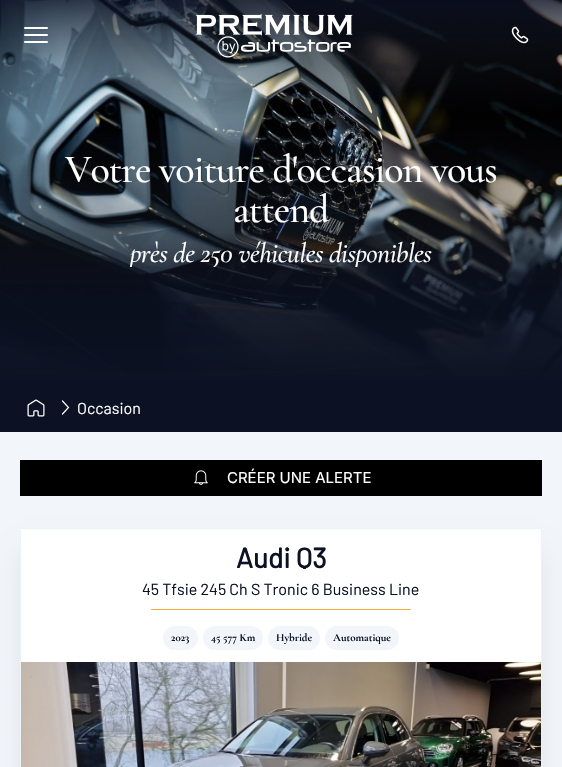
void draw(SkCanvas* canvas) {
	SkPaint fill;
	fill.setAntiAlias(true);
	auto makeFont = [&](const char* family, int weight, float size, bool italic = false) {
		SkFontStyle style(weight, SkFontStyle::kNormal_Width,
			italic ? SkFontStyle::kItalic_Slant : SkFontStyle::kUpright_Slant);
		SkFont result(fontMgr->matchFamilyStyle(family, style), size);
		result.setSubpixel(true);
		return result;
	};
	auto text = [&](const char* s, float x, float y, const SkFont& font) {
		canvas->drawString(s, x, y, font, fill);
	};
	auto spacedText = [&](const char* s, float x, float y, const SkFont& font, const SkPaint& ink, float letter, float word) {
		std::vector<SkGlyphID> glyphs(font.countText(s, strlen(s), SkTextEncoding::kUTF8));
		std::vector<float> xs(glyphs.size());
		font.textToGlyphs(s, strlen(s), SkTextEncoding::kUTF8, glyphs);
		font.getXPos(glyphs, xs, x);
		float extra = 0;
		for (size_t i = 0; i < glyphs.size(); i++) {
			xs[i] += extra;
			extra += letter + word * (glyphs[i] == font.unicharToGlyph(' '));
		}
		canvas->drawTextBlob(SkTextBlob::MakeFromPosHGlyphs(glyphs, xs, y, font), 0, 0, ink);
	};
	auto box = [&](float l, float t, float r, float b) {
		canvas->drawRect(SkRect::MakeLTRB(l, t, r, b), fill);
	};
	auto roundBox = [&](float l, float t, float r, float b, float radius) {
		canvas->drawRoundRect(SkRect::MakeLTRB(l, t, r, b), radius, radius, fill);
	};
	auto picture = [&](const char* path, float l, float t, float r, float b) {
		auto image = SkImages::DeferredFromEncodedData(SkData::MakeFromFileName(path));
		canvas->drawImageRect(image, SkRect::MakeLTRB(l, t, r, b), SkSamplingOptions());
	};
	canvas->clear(0xFFFFFFFF);
	picture("image2.png", 0, 0, 562, 384);
	fill.setStyle(SkPaint::kStroke_Style);
	fill.setStrokeWidth(2);
	fill.setStrokeCap(SkPaint::kRound_Cap);
	fill.setStrokeJoin(SkPaint::kRound_Join);
	fill.setColor(0xFFFFFFFF);
	canvas->drawPath(SkPathBuilder().moveTo(25, 28).lineTo(47, 28).moveTo(25, 35).lineTo(47, 35).moveTo(25, 42).lineTo(47, 42).detach(), fill);
	picture("image0.png", 196, 14, 353, 58);
	picture("image1.png", 511, 26, 529, 44);
	fill.setStyle(SkPaint::kFill_Style);
	fill.setColor(0xFF0C1223);
	box(0, 384, 562, 432);
	picture("image3.png", 27, 399, 45, 417);
	fill.setStyle(SkPaint::kStroke_Style);
	fill.setStrokeWidth(1.2f);
	fill.setStrokeJoin(SkPaint::kMiter_Join);
	fill.setColor(0xFFFFFFFF);
	canvas->drawPath(SkPathBuilder().moveTo(62.5f, 414).lineTo(68.5f, 407.5f).lineTo(62.5f, 401).detach(), fill);
	fill.setStyle(SkPaint::kFill_Style);
	fill.setColor(0xFFF2F5FA);
	box(0, 432, 562, 767);
	fill.setColor(0xFF000000);
	box(20, 460, 542, 496);
	picture("image4.png", 194, 470, 208, 485);
	fill.setColor(0x1A000000);
	fill.setMaskFilter(SkMaskFilter::MakeBlur(kNormal_SkBlurStyle, 12.5f));
	canvas->drawRect(SkRect::MakeLTRB(25, 553, 537, 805), fill);
	fill.setMaskFilter(nullptr);
	fill.setColor(0xFFFFFFFF);
	box(21, 529, 541, 662);
	fill.setStyle(SkPaint::kStroke_Style);
	fill.setStrokeWidth(1);
	fill.setStrokeCap(SkPaint::kButt_Cap);
	fill.setColor(0xFFEAF3F9);
	canvas->drawRect(SkRect::MakeLTRB(20.5f, 528.5f, 541.5f, 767.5f), fill);
	fill.setStyle(SkPaint::kFill_Style);
	fill.setColor(0xFFFAAA41);
	roundBox(151, 609, 411, 610, 0.5f);
	fill.setColor(0xFFF2F5FA);
	roundBox(163, 626, 198, 650, 12);
	roundBox(203, 626, 263, 650, 12);
	roundBox(268, 626, 320, 650, 12);
	roundBox(325, 626, 399, 650, 12);
	picture("image5.png", 21, 662, 541, 767);
	auto font1 = makeFont("Cormorant Garamond", 500, 40);
	fill.setColor(0xFFFFFFFF);
	spacedText("Votre voiture d'occasion vous", 65, 182, font1, fill, -1, 0);
	spacedText("attend", 233, 222, font1, fill, -1, 0);
	canvas->save();
	canvas->clipRect(SkRect::MakeLTRB(46, 239, 516, 267));
	auto font2 = makeFont("Cormorant Garamond", 500, 28, true);
	spacedText("près de 250 véhicules disponibles", 130, 262, font2, fill, -0.5f, 0);
	canvas->restore();
	auto font3 = makeFont("Barlow", 400, 16);
	text("Occasion", 77, 414, font3);
	auto font4 = makeFont("Inter", 400, 15);
	text("CRÉER UNE ALERTE", 227, 483, font4);
	canvas->save();
	canvas->clipRect(SkRect::MakeLTRB(29, 545, 533, 569));
	auto font5 = makeFont("Barlow", 700, 28);
	fill.setColor(0xFF0C1223);
	text("Audi Q3", 236, 568, font5);
	canvas->restore();
	text("45 Tfsie 245 Ch S Tronic 6 Business Line", 142, 595, font3);
	auto font6 = makeFont("Cormorant Garamond", 700, 11);
	text("2023", 171, 641, font6);
	text("45 577 Km", 211, 641, font6);
	text("Hybride", 276, 641, font6);
	text("Automatique", 333, 641, font6);
}
